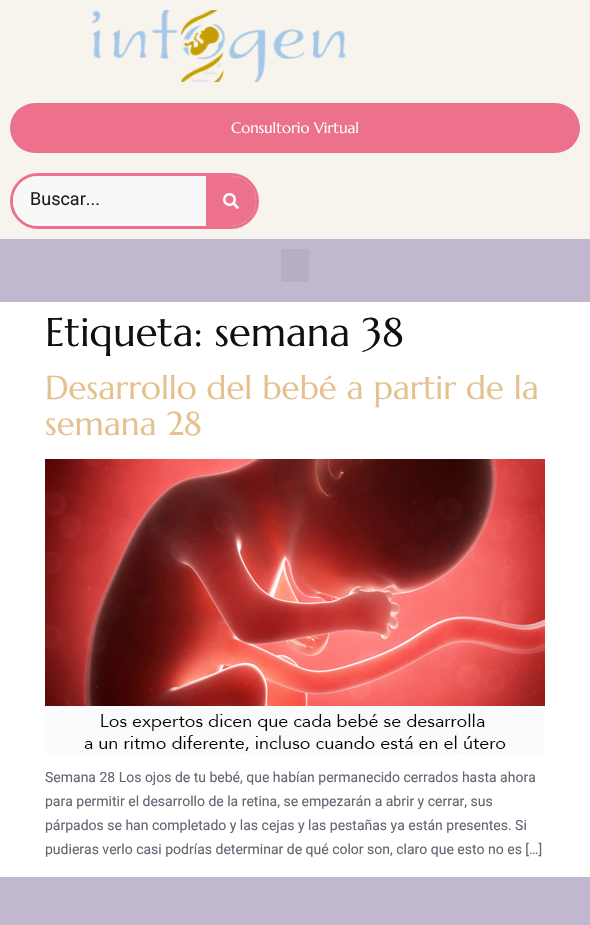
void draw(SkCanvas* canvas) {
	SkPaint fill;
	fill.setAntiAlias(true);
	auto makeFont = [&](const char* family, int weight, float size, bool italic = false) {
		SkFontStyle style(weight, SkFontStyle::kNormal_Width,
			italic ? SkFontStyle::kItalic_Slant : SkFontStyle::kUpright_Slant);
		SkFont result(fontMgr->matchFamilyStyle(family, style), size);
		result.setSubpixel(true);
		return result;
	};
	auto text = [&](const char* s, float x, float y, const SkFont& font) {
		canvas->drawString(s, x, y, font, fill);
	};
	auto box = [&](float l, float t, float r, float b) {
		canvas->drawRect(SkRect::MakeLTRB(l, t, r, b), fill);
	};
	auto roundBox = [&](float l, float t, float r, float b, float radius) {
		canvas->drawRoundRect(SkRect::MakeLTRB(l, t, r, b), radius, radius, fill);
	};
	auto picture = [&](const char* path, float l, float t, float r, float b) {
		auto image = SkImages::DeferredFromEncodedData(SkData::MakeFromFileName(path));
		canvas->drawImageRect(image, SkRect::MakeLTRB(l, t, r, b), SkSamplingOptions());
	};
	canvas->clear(0xFFFFFFFF);
	fill.setColor(0xFFF7F4ED);
	box(0, 0, 590, 239);
	picture("image0.png", 91, 10, 346, 82);
	fill.setColor(0xFFED708D);
	roundBox(10, 103, 580, 153, 25);
	fill.setStyle(SkPaint::kStroke_Style);
	fill.setStrokeWidth(3);
	canvas->drawRoundRect(SkRect::MakeLTRB(11.5f, 174.5f, 257.5f, 227.5f), 26.5f, 26.5f, fill);
	fill.setStyle(SkPaint::kFill_Style);
	fill.setColor(0xFFF8F8F8);
	canvas->drawPath(SkPathBuilder().moveTo(38, 176).lineTo(206, 176).lineTo(206, 226).lineTo(38, 226).cubicTo(24, 226, 13, 215, 13, 201).cubicTo(13, 187, 24, 176, 38, 176).close().detach(), fill);
	fill.setColor(0xFFED708D);
	canvas->drawPath(SkPathBuilder().moveTo(206, 176).lineTo(231, 176).cubicTo(245, 176, 256, 187, 256, 201).cubicTo(256, 215, 245, 226, 231, 226).lineTo(206, 226).close().detach(), fill);
	picture("image1.png", 223, 193, 239, 209);
	fill.setColor(0xFFC1B7CE);
	box(0, 239, 590, 302);
	fill.setColor(0xFFB7AEC4);
	roundBox(281, 249, 309, 282, 3);
	picture("image2.png", 45, 459, 545, 755);
	fill.setColor(0xFFC1B7CE);
	box(0, 877, 590, 925);
	auto font1 = makeFont("Marcellus", 400, 15);
	fill.setColor(0xFFFFFFFF);
	text("Consultorio Virtual", 231, 133, font1);
	auto font2 = makeFont("Roboto", 400, 18);
	fill.setColor(0xFF1E1E1E);
	text("Buscar...", 30, 205, font2);
	auto font3 = makeFont("Marcellus", 400, 40);
	fill.setColor(0xFF111111);
	text("Etiqueta: semana 38", 45, 346, font3);
	auto font4 = makeFont("Marcellus", 400, 33);
	fill.setColor(0xFFE5C18F);
	text("Desarrollo del bebé a partir de la", 45, 399, font4);
	text("semana 28", 45, 435, font4);
	auto font5 = makeFont("Roboto", 400, 14);
	fill.setColor(0xFF626672);
	text("Semana 28 Los ojos de tu bebé, que habían permanecido cerrados hasta ahora", 45, 782, font5);
	text("para permitir el desarrollo de la retina, se empezarán a abrir y cerrar, sus", 45, 806, font5);
	text("párpados se han completado y las cejas y las pestañas ya están presentes. Si", 45, 830, font5);
	text("pudieras verlo casi podrías determinar de qué color son, claro que esto no es […]", 45, 854, font5);
}
